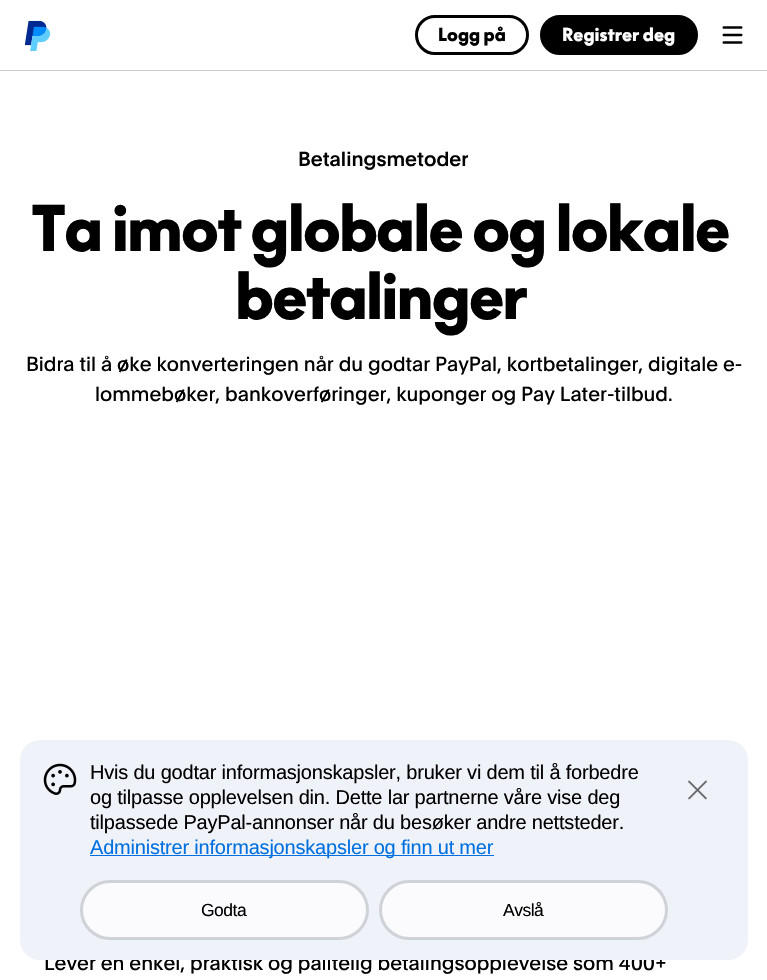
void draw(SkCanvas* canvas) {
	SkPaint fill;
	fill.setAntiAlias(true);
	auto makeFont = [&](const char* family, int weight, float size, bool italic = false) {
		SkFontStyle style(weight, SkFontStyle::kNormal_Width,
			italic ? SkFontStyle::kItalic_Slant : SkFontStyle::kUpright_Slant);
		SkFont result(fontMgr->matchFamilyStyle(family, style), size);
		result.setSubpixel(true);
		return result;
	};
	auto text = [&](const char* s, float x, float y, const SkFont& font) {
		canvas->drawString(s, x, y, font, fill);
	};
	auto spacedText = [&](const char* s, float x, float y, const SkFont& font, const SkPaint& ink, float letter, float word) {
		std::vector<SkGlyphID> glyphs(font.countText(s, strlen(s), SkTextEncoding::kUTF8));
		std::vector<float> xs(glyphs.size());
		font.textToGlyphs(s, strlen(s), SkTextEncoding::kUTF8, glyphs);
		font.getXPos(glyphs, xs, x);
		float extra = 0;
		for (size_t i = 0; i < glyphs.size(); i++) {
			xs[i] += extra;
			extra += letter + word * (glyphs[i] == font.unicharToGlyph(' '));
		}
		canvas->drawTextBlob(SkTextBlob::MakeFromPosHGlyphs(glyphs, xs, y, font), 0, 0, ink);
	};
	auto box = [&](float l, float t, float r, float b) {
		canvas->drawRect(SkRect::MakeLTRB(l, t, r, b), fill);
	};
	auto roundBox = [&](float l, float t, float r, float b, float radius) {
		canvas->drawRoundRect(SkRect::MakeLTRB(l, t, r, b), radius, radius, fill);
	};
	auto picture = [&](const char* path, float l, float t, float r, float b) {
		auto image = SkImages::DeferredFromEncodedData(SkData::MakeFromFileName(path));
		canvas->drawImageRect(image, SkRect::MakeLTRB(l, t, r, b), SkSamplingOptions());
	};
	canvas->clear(0xFFFFFFFF);
	picture("image0.png", 24, 20, 50, 51);
	fill.setStyle(SkPaint::kStroke_Style);
	fill.setStrokeWidth(3);
	fill.setColor(0xFF000000);
	canvas->drawRoundRect(SkRect::MakeLTRB(416.5f, 16.5f, 527.5f, 53.5f), 18.5f, 18.5f, fill);
	fill.setStyle(SkPaint::kFill_Style);
	canvas->drawRoundRect(SkRect::MakeLTRB(541.5f, 16.5f, 696.5f, 53.5f), 18.5f, 18.5f, fill);
	fill.setStyle(SkPaint::kStroke_Style);
	canvas->drawRoundRect(SkRect::MakeLTRB(541.5f, 16.5f, 696.5f, 53.5f), 18.5f, 18.5f, fill);
	picture("image1.png", 722, 26, 743, 44);
	fill.setStyle(SkPaint::kFill_Style);
	fill.setColor(0xFFCCCCCC);
	box(0, 70, 767, 71);
	auto font1 = makeFont("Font", 900, 17.5f);
	fill.setColor(0xFF000000);
	text("Logg på", 438, 41, font1);
	fill.setColor(0xFFFFFFFF);
	text("Registrer deg", 562, 41, font1);
	auto font2 = makeFont("Font", 500, 20);
	fill.setColor(0xFF000000);
	text("Betalingsmetoder", 298, 166, font2);
	auto font3 = makeFont("Font", 900, 61.25f);
	spacedText("Ta imot globale og lokale", 31, 251, font3, fill, -1.85f, 0);
	spacedText("betalinger", 235, 319, font3, fill, -1.85f, 0);
	auto font4 = makeFont("Font", 400, 20);
	text("Bidra til å øke konverteringen når du godtar PayPal, kortbetalinger, digitale e-", 26, 371, font4);
	text("lommebøker, bankoverføringer, kuponger og Pay Later-tilbud.", 95, 401, font4);
	text("Lever en enkel, praktisk og pålitelig betalingsopplevelse som 400+", 44, 970, font4);
	fill.setColor(0xFFF0F2F9);
	roundBox(20, 740, 748, 960, 20);
	picture("image2.png", 43, 763, 77, 795);
	auto font5 = makeFont("Liberation Sans", 400, 20);
	fill.setColor(0xFF000000);
	spacedText("Hvis du godtar informasjonskapsler, bruker vi dem til å forbedre", 90, 779, font5, fill, -0.2f, 0);
	spacedText("og tilpasse opplevelsen din. Dette lar partnerne våre vise deg", 90, 804, font5, fill, -0.2f, 0);
	spacedText("tilpassede PayPal-annonser når du besøker andre nettsteder.", 90, 829, font5, fill, -0.2f, 0);
	fill.setColor(0xFF0070E0);
	box(90, 855, 494, 856);
	spacedText("Administrer informasjonskapsler og finn ut mer", 90, 854, font5, fill, -0.2f, 0);
	fill.setColor(0xFFFBFBFD);
	canvas->drawRoundRect(SkRect::MakeLTRB(81.5f, 881.5f, 367.5f, 938.5f), 28.5f, 28.5f, fill);
	fill.setStyle(SkPaint::kStroke_Style);
	fill.setColor(0xFFCFD3D8);
	canvas->drawRoundRect(SkRect::MakeLTRB(81.5f, 881.5f, 367.5f, 938.5f), 28.5f, 28.5f, fill);
	auto font6 = makeFont("Liberation Sans", 400, 17.5f);
	fill.setStyle(SkPaint::kFill_Style);
	fill.setColor(0xFF000000);
	spacedText("Godta", 201, 916, font6, fill, -0.5f, 0);
	fill.setColor(0xFFFBFBFD);
	canvas->drawRoundRect(SkRect::MakeLTRB(380.5f, 881.5f, 666.5f, 938.5f), 28.5f, 28.5f, fill);
	fill.setStyle(SkPaint::kStroke_Style);
	fill.setColor(0xFFCFD3D8);
	canvas->drawRoundRect(SkRect::MakeLTRB(380.5f, 881.5f, 666.5f, 938.5f), 28.5f, 28.5f, fill);
	fill.setStyle(SkPaint::kFill_Style);
	fill.setColor(0xFF000000);
	spacedText("Avslå", 503, 916, font6, fill, -0.5f, 0);
	picture("image3.png", 688, 780, 707, 800);
}
